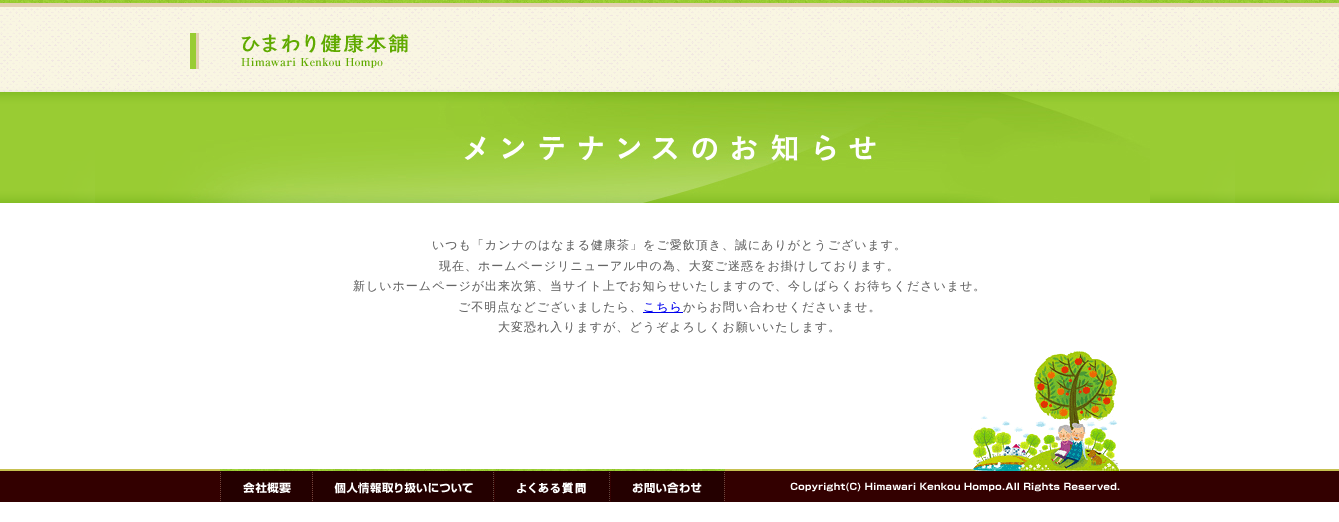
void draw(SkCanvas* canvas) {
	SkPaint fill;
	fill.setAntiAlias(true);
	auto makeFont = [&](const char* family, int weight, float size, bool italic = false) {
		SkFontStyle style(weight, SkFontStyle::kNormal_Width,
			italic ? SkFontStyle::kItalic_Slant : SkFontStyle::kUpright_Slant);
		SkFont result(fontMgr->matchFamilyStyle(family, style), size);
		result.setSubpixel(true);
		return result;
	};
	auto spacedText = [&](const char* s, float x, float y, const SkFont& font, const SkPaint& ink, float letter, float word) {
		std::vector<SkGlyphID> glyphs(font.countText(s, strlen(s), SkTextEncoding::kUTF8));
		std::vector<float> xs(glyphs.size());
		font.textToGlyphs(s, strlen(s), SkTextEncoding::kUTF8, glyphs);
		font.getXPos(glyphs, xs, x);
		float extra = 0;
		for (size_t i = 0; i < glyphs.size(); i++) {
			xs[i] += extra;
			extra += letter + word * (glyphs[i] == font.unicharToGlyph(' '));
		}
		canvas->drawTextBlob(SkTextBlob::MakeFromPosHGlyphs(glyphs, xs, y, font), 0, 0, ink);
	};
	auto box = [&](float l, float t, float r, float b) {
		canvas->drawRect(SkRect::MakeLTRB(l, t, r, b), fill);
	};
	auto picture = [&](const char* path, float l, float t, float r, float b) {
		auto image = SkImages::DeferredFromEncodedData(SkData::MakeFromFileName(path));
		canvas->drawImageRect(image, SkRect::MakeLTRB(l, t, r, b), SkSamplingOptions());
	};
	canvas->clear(0xFFFFFFFF);
	picture("image0.png", 0, 0, 1339, 92);
	picture("image1.png", 190, 0, 540, 92);
	picture("image2.png", 0, 92, 1339, 203);
	picture("image3.png", 190, 92, 1150, 203);
	fill.setColor(0xFF0000EE);
	box(643, 312, 683, 313);
	picture("image4.png", 971, 351, 1120, 469);
	picture("image5.png", 0, 469, 1339, 502);
	picture("image6.png", 220, 469, 312, 502);
	picture("image7.png", 312, 469, 493, 502);
	picture("image8.png", 493, 469, 609, 502);
	picture("image9.png", 609, 469, 725, 502);
	picture("image10.png", 790, 469, 1120, 492);
	auto font1 = makeFont("WenQuanYi Zen Hei", 500, 12);
	fill.setColor(0xFF666666);
	spacedText("いつも「カンナのはなまる健康茶」をご愛飲頂き、誠にありがとうございます。", 432, 249, font1, fill, 1, 0);
	spacedText("現在、ホームページリニューアル中の為、大変ご迷惑をお掛けしております。", 439, 270, font1, fill, 1, 0);
	spacedText("新しいホームページが出来次第、当サイト上でお知らせいたしますので、今しばらくお待ちくださいませ。", 353, 290, font1, fill, 1, 0);
	spacedText("ご不明点などございましたら、", 458, 311, font1, fill, 1, 0);
	fill.setColor(0xFF0000EE);
	spacedText("こちら", 643, 311, font1, fill, 1, 0);
	fill.setColor(0xFF666666);
	spacedText("からお問い合わせくださいませ。", 683, 311, font1, fill, 1, 0);
	spacedText("大変恐れ入りますが、どうぞよろしくお願いいたします。", 498, 331, font1, fill, 1, 0);
}
